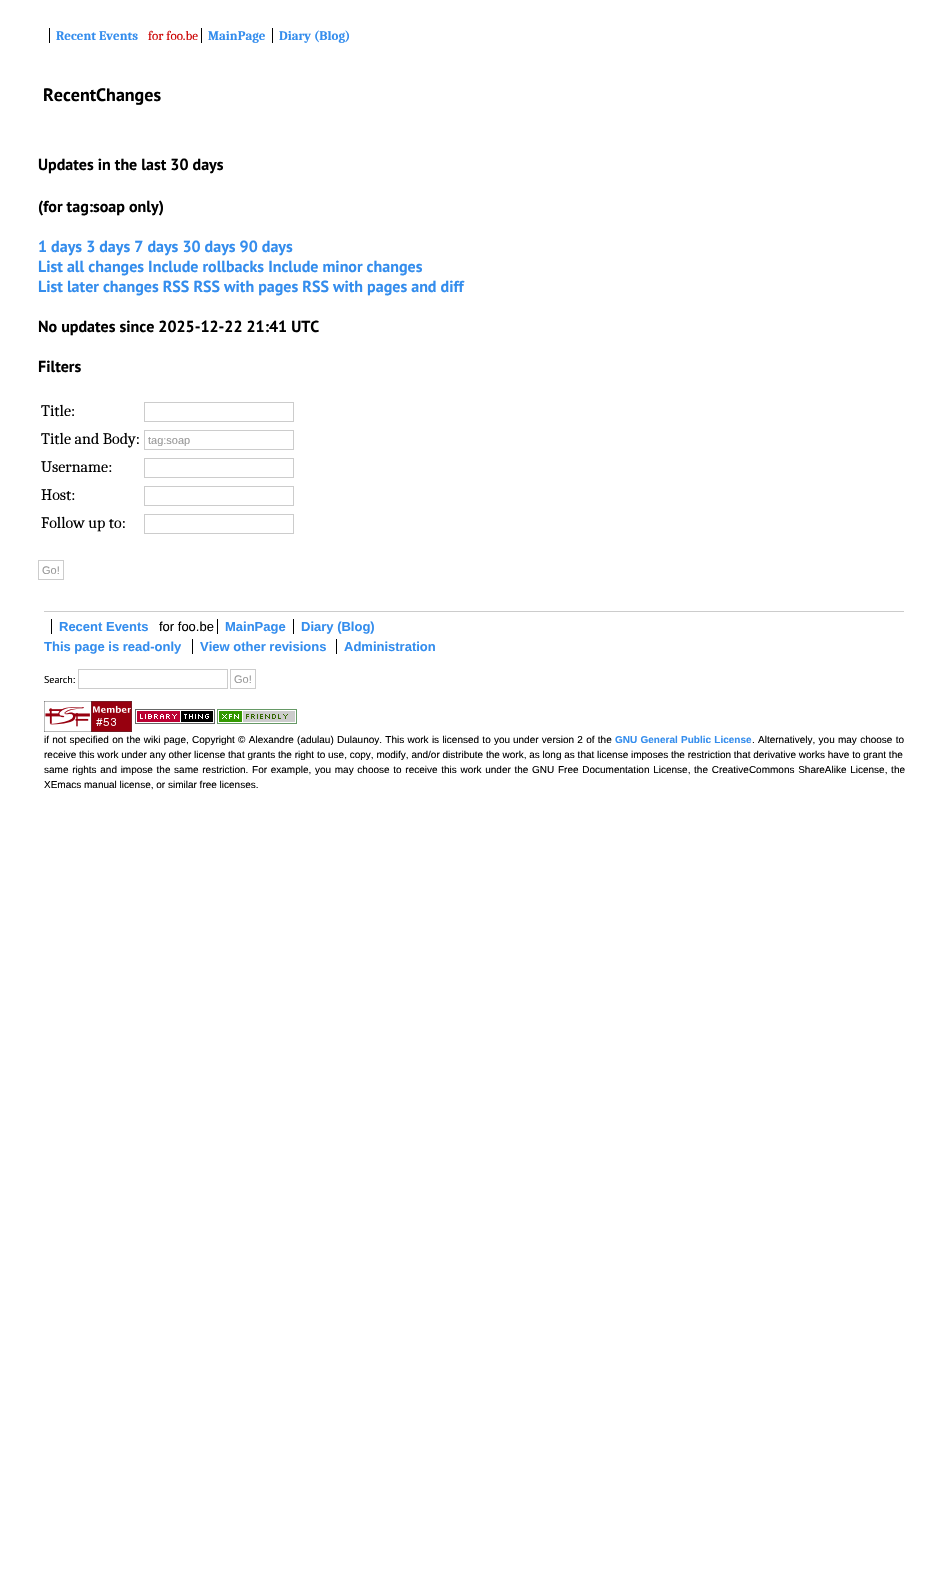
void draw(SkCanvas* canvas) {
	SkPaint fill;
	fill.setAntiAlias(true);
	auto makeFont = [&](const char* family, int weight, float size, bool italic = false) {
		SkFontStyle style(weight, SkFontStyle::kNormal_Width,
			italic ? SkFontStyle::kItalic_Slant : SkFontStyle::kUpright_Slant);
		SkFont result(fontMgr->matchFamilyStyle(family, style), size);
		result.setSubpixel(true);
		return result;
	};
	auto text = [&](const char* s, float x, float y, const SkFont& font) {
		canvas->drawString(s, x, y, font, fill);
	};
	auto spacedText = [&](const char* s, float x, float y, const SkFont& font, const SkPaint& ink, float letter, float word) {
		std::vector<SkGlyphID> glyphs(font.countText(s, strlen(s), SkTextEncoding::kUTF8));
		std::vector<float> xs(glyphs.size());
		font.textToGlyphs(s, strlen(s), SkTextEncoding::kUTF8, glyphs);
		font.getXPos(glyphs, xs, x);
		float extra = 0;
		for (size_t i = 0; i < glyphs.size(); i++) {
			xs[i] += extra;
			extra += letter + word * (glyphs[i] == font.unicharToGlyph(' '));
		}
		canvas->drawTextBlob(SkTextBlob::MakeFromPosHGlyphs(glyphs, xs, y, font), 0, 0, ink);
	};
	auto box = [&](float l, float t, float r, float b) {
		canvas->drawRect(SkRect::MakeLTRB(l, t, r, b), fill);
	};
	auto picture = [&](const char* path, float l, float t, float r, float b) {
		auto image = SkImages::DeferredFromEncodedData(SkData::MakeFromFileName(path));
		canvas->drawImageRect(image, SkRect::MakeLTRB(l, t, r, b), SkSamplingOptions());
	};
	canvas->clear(0xFFFFFFFF);
	fill.setColor(0xFF000000);
	box(49, 28, 50, 43);
	box(201, 28, 202, 43);
	box(272, 28, 273, 43);
	fill.setStyle(SkPaint::kStroke_Style);
	fill.setStrokeWidth(1);
	fill.setColor(0xFFCCCCCC);
	canvas->drawRect(SkRect::MakeLTRB(144.5f, 402.5f, 293.5f, 421.5f), fill);
	canvas->drawRect(SkRect::MakeLTRB(144.5f, 430.5f, 293.5f, 449.5f), fill);
	canvas->drawRect(SkRect::MakeLTRB(144.5f, 458.5f, 293.5f, 477.5f), fill);
	canvas->drawRect(SkRect::MakeLTRB(144.5f, 486.5f, 293.5f, 505.5f), fill);
	canvas->drawRect(SkRect::MakeLTRB(144.5f, 514.5f, 293.5f, 533.5f), fill);
	canvas->drawRect(SkRect::MakeLTRB(38.5f, 560.5f, 63.5f, 579.5f), fill);
	fill.setStyle(SkPaint::kFill_Style);
	box(44, 611, 904, 612);
	fill.setColor(0xFF000000);
	box(51, 619, 52, 634);
	box(217, 619, 218, 634);
	box(293, 619, 294, 634);
	box(192, 639, 193, 654);
	box(336, 639, 337, 654);
	fill.setStyle(SkPaint::kStroke_Style);
	fill.setColor(0xFFCCCCCC);
	canvas->drawRect(SkRect::MakeLTRB(78.5f, 669.5f, 227.5f, 688.5f), fill);
	canvas->drawRect(SkRect::MakeLTRB(230.5f, 669.5f, 255.5f, 688.5f), fill);
	picture("image0.png", 44, 701, 132, 732);
	picture("image1.png", 135, 709, 215, 724);
	picture("image2.png", 217, 709, 297, 724);
	auto font1 = makeFont("Caladea", 700, 13);
	fill.setStyle(SkPaint::kFill_Style);
	fill.setColor(0xFF348DED);
	text("Recent Events", 56, 40, font1);
	auto font2 = makeFont("Caladea", 400, 13);
	fill.setColor(0xFFCC0000);
	text("for foo.be", 148, 40, font2);
	fill.setColor(0xFF348DED);
	text("MainPage", 208, 40, font1);
	text("Diary (Blog)", 279, 40, font1);
	auto font3 = makeFont("PT Sans", 700, 18);
	fill.setColor(0xFF000000);
	text("RecentChanges", 43, 101, font3);
	auto font4 = makeFont("PT Sans", 700, 16);
	text("Updates in the last 30 days", 38, 170, font4);
	text("(for tag:soap only)", 38, 212, font4);
	fill.setColor(0xFF348DED);
	text("1 days 3 days 7 days 30 days 90 days", 38, 252, font4);
	text("List all changes Include rollbacks Include minor changes", 38, 272, font4);
	text("List later changes RSS RSS with pages RSS with pages and diff", 38, 292, font4);
	fill.setColor(0xFF000000);
	text("No updates since 2025-12-22 21:41 UTC", 38, 332, font4);
	text("Filters", 38, 372, font4);
	auto font5 = makeFont("Caladea", 400, 16);
	text("Title:", 41, 416, font5);
	text("Title and Body:", 41, 444, font5);
	canvas->save();
	canvas->clipRect(SkRect::MakeLTRB(148, 434, 290, 446));
	auto font6 = makeFont("Liberation Sans", 400, 11);
	fill.setColor(0xFF999999);
	text("tag:soap", 148, 444, font6);
	canvas->restore();
	fill.setColor(0xFF000000);
	text("Username:", 41, 472, font5);
	text("Host:", 41, 500, font5);
	text("Follow up to:", 41, 528, font5);
	fill.setColor(0xFF999999);
	text("Go!", 42, 574, font6);
	auto font7 = makeFont("Liberation Sans", 700, 13);
	fill.setColor(0xFF348DED);
	text("Recent Events", 59, 631, font7);
	auto font8 = makeFont("Liberation Sans", 400, 13);
	fill.setColor(0xFF000000);
	text("for foo.be", 159, 631, font8);
	fill.setColor(0xFF348DED);
	text("MainPage", 225, 631, font7);
	text("Diary (Blog)", 301, 631, font7);
	text("This page is read-only", 44, 651, font7);
	text("View other revisions", 200, 651, font7);
	text("Administration", 344, 651, font7);
	auto font9 = makeFont("PT Sans", 400, 10);
	fill.setColor(0xFF000000);
	text("Search:", 44, 683, font9);
	fill.setColor(0xFF999999);
	text("Go!", 234, 683, font6);
	auto font10 = makeFont("Liberation Sans", 400, 10);
	fill.setColor(0xFF000000);
	spacedText("if not specified on the wiki page, Copyright © Alexandre (adulau) Dulaunoy. This work is licensed to you", 44, 743, font10, fill, 0, 0.5f);
	spacedText("under version 2 of the", 513, 743, font10, fill, 0, 0.5f);
	auto font11 = makeFont("Liberation Sans", 700, 10);
	fill.setColor(0xFF348DED);
	spacedText("GNU General Public License", 615, 743, font11, fill, 0, 0.5f);
	fill.setColor(0xFF000000);
	spacedText(". Alternatively, you may choose to", 752, 743, font10, fill, 0, 0.5f);
	text("receive this work under any other license that grants the right to use, copy, modify, and/or distribute the work, as long as that license imposes the restriction that derivative works have to grant the", 44, 758, font10);
	spacedText("same rights and impose the same restriction. For example, you may choose to receive this work under the GNU Free Documentation License, the CreativeCommons ShareAlike License, the", 44, 773, font10, fill, 0, 0.9f);
	text("XEmacs manual license, or similar free licenses.", 44, 788, font10);
}
